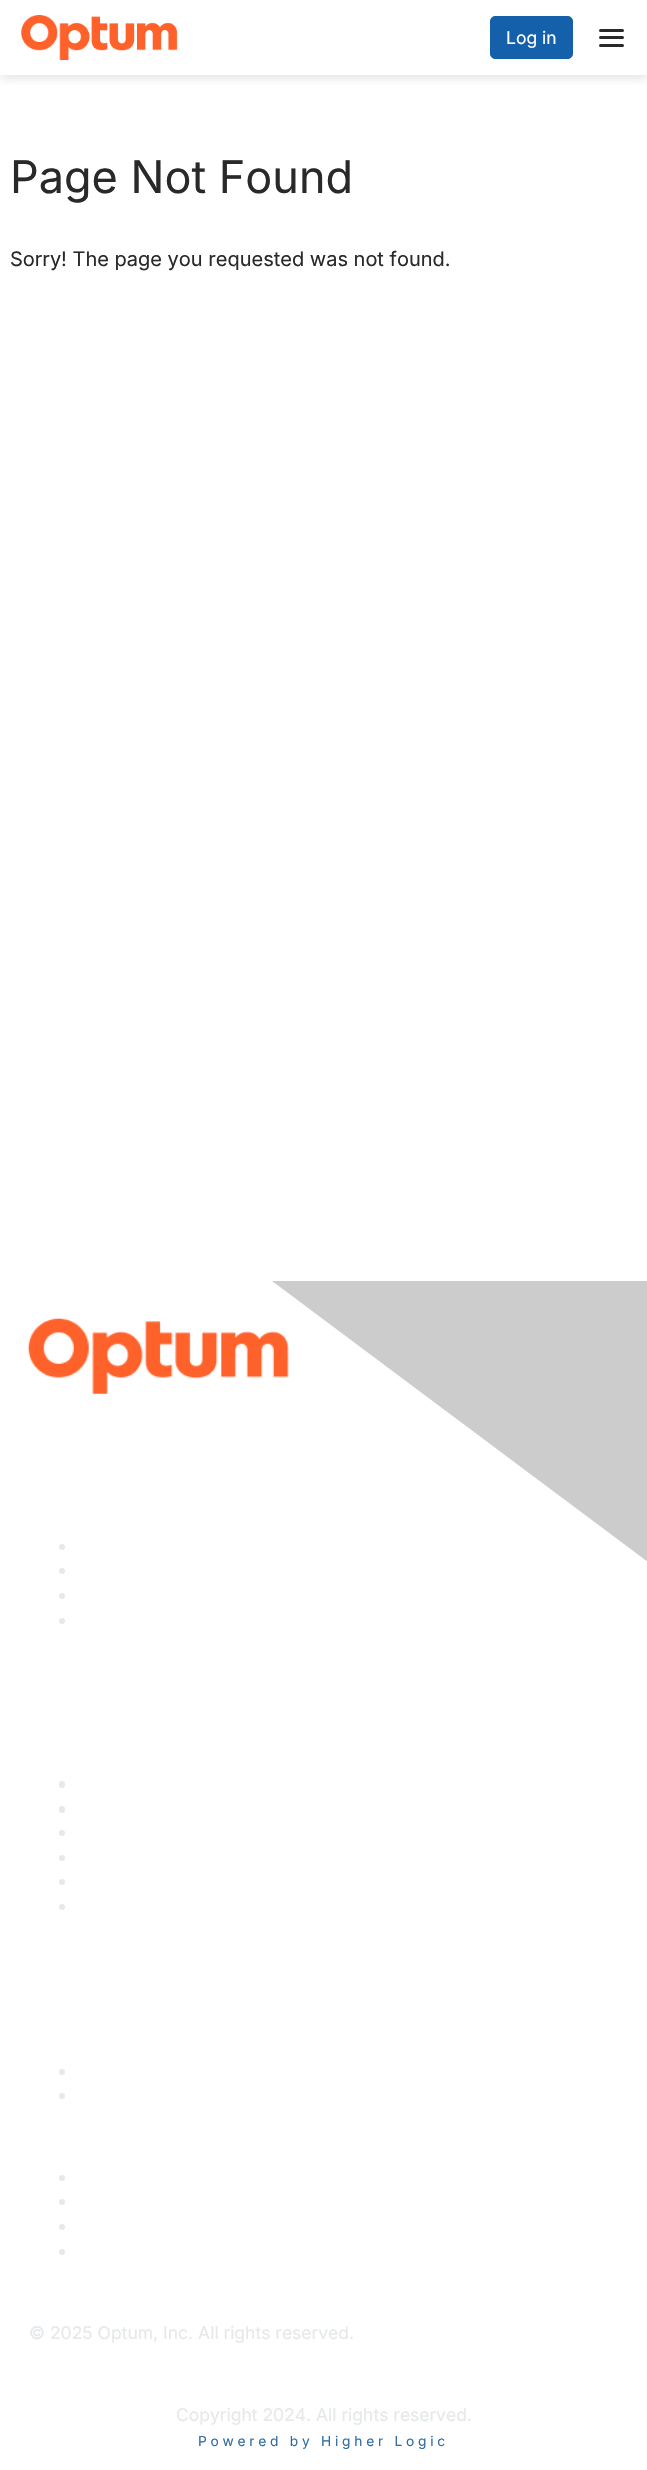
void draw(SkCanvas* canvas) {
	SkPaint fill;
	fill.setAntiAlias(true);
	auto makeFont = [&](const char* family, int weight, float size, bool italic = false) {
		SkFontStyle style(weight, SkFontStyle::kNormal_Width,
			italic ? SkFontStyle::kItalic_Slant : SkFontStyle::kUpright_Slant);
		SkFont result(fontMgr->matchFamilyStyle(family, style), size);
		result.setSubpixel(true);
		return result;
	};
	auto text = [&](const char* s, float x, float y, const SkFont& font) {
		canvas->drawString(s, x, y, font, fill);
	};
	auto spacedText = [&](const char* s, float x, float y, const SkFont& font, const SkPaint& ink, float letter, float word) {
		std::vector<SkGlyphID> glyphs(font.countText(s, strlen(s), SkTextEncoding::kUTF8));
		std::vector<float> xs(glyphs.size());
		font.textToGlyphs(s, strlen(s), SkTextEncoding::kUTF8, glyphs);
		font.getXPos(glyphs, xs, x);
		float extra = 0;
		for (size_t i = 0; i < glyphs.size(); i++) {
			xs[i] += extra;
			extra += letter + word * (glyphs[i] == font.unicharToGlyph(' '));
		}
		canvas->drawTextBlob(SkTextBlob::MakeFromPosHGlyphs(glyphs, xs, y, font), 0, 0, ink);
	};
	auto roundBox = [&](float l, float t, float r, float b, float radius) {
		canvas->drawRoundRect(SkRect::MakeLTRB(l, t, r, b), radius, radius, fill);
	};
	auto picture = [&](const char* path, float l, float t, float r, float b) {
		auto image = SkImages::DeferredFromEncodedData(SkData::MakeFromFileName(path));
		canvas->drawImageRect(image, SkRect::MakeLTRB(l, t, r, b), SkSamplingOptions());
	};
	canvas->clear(0xFFFFFFFF);
	canvas->save();
	canvas->clipRect(SkRect::MakeLTRB(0, 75, 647, 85));
	fill.setColor(0x3D838791);
	fill.setMaskFilter(SkMaskFilter::MakeBlur(kNormal_SkBlurStyle, 5));
	canvas->drawRect(SkRect::MakeLTRB(0, 3, 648, 78), fill);
	fill.setMaskFilter(nullptr);
	canvas->restore();
	picture("image0.png", 21, 15, 178, 60);
	fill.setColor(0xFF1460AA);
	canvas->drawRoundRect(SkRect::MakeLTRB(490.5f, 16.5f, 572.5f, 58.5f), 4.5f, 4.5f, fill);
	fill.setStyle(SkPaint::kStroke_Style);
	fill.setStrokeWidth(1);
	canvas->drawRoundRect(SkRect::MakeLTRB(490.5f, 16.5f, 572.5f, 58.5f), 4.5f, 4.5f, fill);
	fill.setStyle(SkPaint::kFill_Style);
	fill.setColor(0xFF292929);
	roundBox(599, 29, 624, 32, 1.5f);
	roundBox(599, 36, 624, 39, 1.5f);
	roundBox(599, 44, 624, 47, 1.5f);
	fill.setColor(0xFFCCCCCC);
	canvas->drawPath(SkPathBuilder().moveTo(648, 1281).lineTo(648, 1562).lineTo(272, 1281).close().detach(), fill);
	picture("image1.png", 28, 1318, 289, 1394);
	fill.setColor(0xFFE5E9EB);
	canvas->drawCircle(62, 1547, 3, fill);
	canvas->drawCircle(62, 1571, 3, fill);
	canvas->drawCircle(62, 1596, 3, fill);
	canvas->drawCircle(62, 1621, 3, fill);
	roundBox(59, 1781, 65, 1788, 3);
	roundBox(59, 1806, 65, 1813, 3);
	canvas->drawCircle(62, 1833, 3, fill);
	canvas->drawCircle(62, 1858, 3, fill);
	canvas->drawCircle(62, 1882, 3, fill);
	canvas->drawCircle(62, 1907, 3, fill);
	canvas->drawCircle(62, 2072, 3, fill);
	canvas->drawCircle(62, 2096, 3, fill);
	canvas->drawCircle(62, 2178, 3, fill);
	canvas->drawCircle(62, 2202, 3, fill);
	canvas->drawCircle(62, 2227, 3, fill);
	canvas->drawCircle(62, 2252, 3, fill);
	auto font1 = makeFont("Inter", 400, 17.5f);
	fill.setColor(0xFFFFFFFF);
	text("Log in", 506, 44, font1);
	auto font2 = makeFont("Inter", 400, 45);
	fill.setColor(0xFF292929);
	text("Page Not Found", 10, 193, font2);
	auto font3 = makeFont("Inter", 400, 20);
	text("Sorry! The page you requested was not found.", 10, 266, font3);
	fill.setColor(0xFFE5E9EB);
	text("© 2025 Optum, Inc. All rights reserved.", 29, 2339, font1);
	text("Copyright 2024. All rights reserved.", 176, 2421, font1);
	auto font4 = makeFont("Inter", 400, 13.75f);
	fill.setColor(0xFF2E6DA4);
	spacedText("Powered by Higher Logic", 198, 2446, font4, fill, 3.75f, 0);
}
